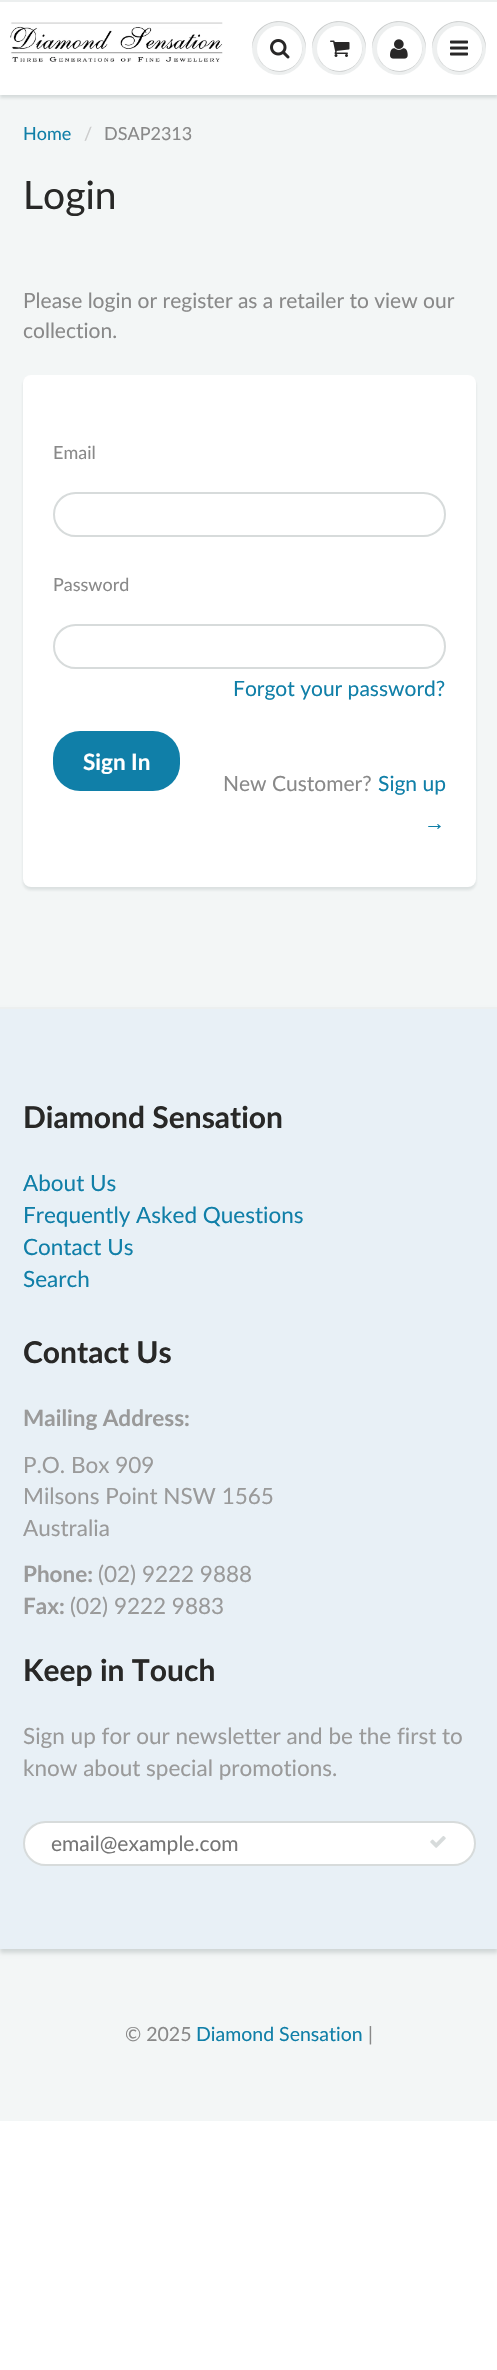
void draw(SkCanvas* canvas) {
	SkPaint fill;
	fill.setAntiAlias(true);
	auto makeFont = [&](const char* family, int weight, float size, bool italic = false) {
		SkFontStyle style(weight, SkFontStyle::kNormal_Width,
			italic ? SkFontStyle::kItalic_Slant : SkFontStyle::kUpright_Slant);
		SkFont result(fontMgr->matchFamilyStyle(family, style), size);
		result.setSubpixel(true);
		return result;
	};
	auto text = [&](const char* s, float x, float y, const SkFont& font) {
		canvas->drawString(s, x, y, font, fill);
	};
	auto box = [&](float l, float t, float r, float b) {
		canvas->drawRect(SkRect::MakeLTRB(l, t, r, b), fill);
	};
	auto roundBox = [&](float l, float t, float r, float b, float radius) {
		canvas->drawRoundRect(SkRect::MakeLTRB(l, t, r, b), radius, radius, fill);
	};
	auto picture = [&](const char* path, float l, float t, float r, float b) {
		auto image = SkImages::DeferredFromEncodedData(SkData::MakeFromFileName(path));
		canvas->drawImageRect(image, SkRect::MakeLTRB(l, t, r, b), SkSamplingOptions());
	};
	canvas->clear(0xFFFFFFFF);
	fill.setColor(0xFFF3F6F6);
	box(0, 95, 497, 1007);
	fill.setColor(0x1F0B191C);
	fill.setMaskFilter(SkMaskFilter::MakeBlur(kNormal_SkBlurStyle, 1.5f));
	canvas->drawRect(SkRect::MakeLTRB(0, 3, 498, 98), fill);
	fill.setMaskFilter(nullptr);
	fill.setColor(0xFFFFFFFF);
	box(0, 2, 497, 95);
	fill.setColor(0xFFECEFEF);
	box(0, 0, 497, 2);
	picture("image0.png", 10, 22, 223, 62);
	fill.setColor(0xFFEDEFEF);
	canvas->drawCircle(279, 48, 27, fill);
	fill.setColor(0xFFC9CBCB);
	canvas->drawPath(SkPathBuilder().moveTo(279, 22).cubicTo(294, 22, 305, 34, 306, 49).cubicTo(306, 43, 305, 38, 301, 33).cubicTo(286, 11, 251, 22, 252, 49).cubicTo(253, 34, 264, 22, 279, 22).close().detach(), fill);
	canvas->drawPath(SkPathBuilder().moveTo(258, 56).cubicTo(259, 60, 262, 65, 266, 67).cubicTo(284, 81, 308, 62, 301, 42).cubicTo(309, 69, 268, 83, 258, 56).close().detach(), fill);
	fill.setColor(0xFFFFFFFF);
	canvas->drawCircle(279.5f, 48.5f, 22.5f, fill);
	canvas->drawPath(SkPathBuilder().moveTo(279, 27).cubicTo(297, 27, 304, 44, 300, 57).cubicTo(309, 35, 281, 16, 264, 32).cubicTo(268, 29, 273, 27, 279, 27).close().detach(), fill);
	picture("image1.png", 270, 39, 290, 59);
	fill.setColor(0xFFEDEFEF);
	canvas->drawCircle(339, 48, 27, fill);
	fill.setColor(0xFFC9CBCB);
	canvas->drawPath(SkPathBuilder().moveTo(339, 22).cubicTo(354, 22, 365, 34, 366, 49).cubicTo(366, 43, 365, 38, 361, 33).cubicTo(346, 11, 311, 22, 312, 49).cubicTo(313, 34, 324, 22, 339, 22).close().detach(), fill);
	canvas->drawPath(SkPathBuilder().moveTo(318, 56).cubicTo(319, 60, 322, 65, 326, 67).cubicTo(344, 81, 368, 62, 361, 42).cubicTo(369, 69, 328, 83, 318, 56).close().detach(), fill);
	fill.setColor(0xFFFFFFFF);
	canvas->drawCircle(339.5f, 48.5f, 22.5f, fill);
	canvas->drawPath(SkPathBuilder().moveTo(339, 27).cubicTo(357, 27, 364, 44, 360, 57).cubicTo(369, 35, 341, 16, 324, 32).cubicTo(328, 29, 333, 27, 339, 27).close().detach(), fill);
	picture("image2.png", 330, 40, 350, 57);
	fill.setColor(0xFFEDEFEF);
	canvas->drawCircle(399, 48, 27, fill);
	fill.setColor(0xFFC9CBCB);
	canvas->drawPath(SkPathBuilder().moveTo(399, 22).cubicTo(414, 22, 425, 34, 426, 49).cubicTo(426, 43, 425, 38, 421, 33).cubicTo(406, 11, 371, 22, 372, 49).cubicTo(373, 34, 384, 22, 399, 22).close().detach(), fill);
	canvas->drawPath(SkPathBuilder().moveTo(378, 56).cubicTo(379, 60, 382, 65, 386, 67).cubicTo(404, 81, 428, 62, 421, 42).cubicTo(429, 69, 388, 83, 378, 56).close().detach(), fill);
	fill.setColor(0xFFFFFFFF);
	canvas->drawCircle(399.5f, 48.5f, 22.5f, fill);
	canvas->drawPath(SkPathBuilder().moveTo(399, 27).cubicTo(417, 27, 424, 44, 420, 57).cubicTo(429, 35, 401, 16, 384, 32).cubicTo(388, 29, 393, 27, 399, 27).close().detach(), fill);
	picture("image3.png", 390, 39, 408, 59);
	fill.setColor(0xFFEDEFEF);
	canvas->drawCircle(459, 48, 27, fill);
	fill.setColor(0xFFC9CBCB);
	canvas->drawPath(SkPathBuilder().moveTo(459, 22).cubicTo(474, 22, 485, 34, 486, 49).cubicTo(486, 43, 485, 38, 481, 33).cubicTo(466, 11, 431, 22, 432, 49).cubicTo(433, 34, 444, 22, 459, 22).close().detach(), fill);
	canvas->drawPath(SkPathBuilder().moveTo(438, 56).cubicTo(439, 60, 442, 65, 446, 67).cubicTo(464, 81, 488, 62, 481, 42).cubicTo(489, 69, 448, 83, 438, 56).close().detach(), fill);
	fill.setColor(0xFFFFFFFF);
	canvas->drawCircle(459.5f, 48.5f, 22.5f, fill);
	canvas->drawPath(SkPathBuilder().moveTo(459, 27).cubicTo(477, 27, 484, 44, 480, 57).cubicTo(489, 35, 461, 16, 444, 32).cubicTo(448, 29, 453, 27, 459, 27).close().detach(), fill);
	picture("image4.png", 450, 40, 468, 56);
	fill.setColor(0x1A0B191C);
	fill.setMaskFilter(SkMaskFilter::MakeBlur(kNormal_SkBlurStyle, 1.5f));
	canvas->drawRoundRect(SkRect::MakeLTRB(23, 378, 476, 890), 8, 8, fill);
	fill.setMaskFilter(nullptr);
	fill.setColor(0xFFFFFFFF);
	roundBox(23, 375, 476, 887, 8);
	fill.setStyle(SkPaint::kStroke_Style);
	fill.setStrokeWidth(2);
	fill.setColor(0xFFD7DBDB);
	canvas->drawRoundRect(SkRect::MakeLTRB(54, 493, 445, 536), 21.5f, 21.5f, fill);
	canvas->drawRoundRect(SkRect::MakeLTRB(54, 625, 445, 668), 21.5f, 21.5f, fill);
	fill.setStyle(SkPaint::kFill_Style);
	fill.setColor(0xFF107FA8);
	roundBox(53, 731, 180, 791, 27);
	fill.setColor(0xFFF3F6F6);
	box(0, 1949, 497, 2121);
	fill.setColor(0xFFD1D7D7);
	fill.setMaskFilter(SkMaskFilter::MakeBlur(kNormal_SkBlurStyle, 2));
	canvas->drawRect(SkRect::MakeLTRB(0, 1011, 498, 1953), fill);
	fill.setMaskFilter(nullptr);
	fill.setColor(0xFFE8F0F6);
	box(0, 1009, 497, 1949);
	fill.setColor(0xFFECEFEF);
	box(0, 1007, 497, 1009);
	fill.setColor(0xFFFFFFFF);
	canvas->drawRoundRect(SkRect::MakeLTRB(24, 1822, 475, 1865), 21.5f, 21.5f, fill);
	fill.setStyle(SkPaint::kStroke_Style);
	fill.setColor(0xFFD7DBDB);
	canvas->drawRoundRect(SkRect::MakeLTRB(24, 1822, 475, 1865), 21.5f, 21.5f, fill);
	picture("image5.png", 430, 1836, 446, 1848);
	auto font1 = makeFont("Lato", 400, 18);
	fill.setStyle(SkPaint::kFill_Style);
	fill.setColor(0xFF107FA8);
	text("Home", 23, 140, font1);
	fill.setColor(0xFFCCCCCC);
	text("/", 84, 140, font1);
	fill.setColor(0xFF898989);
	text("DSAP2313", 104, 140, font1);
	auto font2 = makeFont("Lato", 400, 39);
	fill.setColor(0xFF282827);
	text("Login", 23, 209, font2);
	auto font3 = makeFont("Lato", 400, 21);
	fill.setColor(0xFF898989);
	text("Please login or register as a retailer to view our", 23, 308, font3);
	text("collection.", 23, 338, font3);
	text("Email", 53, 459, font1);
	text("Password", 53, 591, font1);
	fill.setColor(0xFF107FA8);
	text("Forgot your password?", 233, 696, font3);
	auto font4 = makeFont("Lato", 700, 22.5f);
	fill.setColor(0xFFFFFFFF);
	text("Sign In", 83, 770, font4);
	fill.setColor(0xFF898989);
	text("New Customer?", 223, 791, font3);
	fill.setColor(0xFF107FA8);
	text("Sign up", 378, 791, font3);
	auto font5 = makeFont("Liberation Sans", 400, 21);
	text("→", 424, 830, font5);
	auto font6 = makeFont("Lato", 700, 30);
	fill.setColor(0xFF282827);
	text("Diamond Sensation", 23, 1128, font6);
	auto font7 = makeFont("Lato", 400, 22.5f);
	fill.setColor(0xFF107FA8);
	text("About Us", 23, 1191, font7);
	text("Frequently Asked Questions", 23, 1223, font7);
	text("Contact Us", 23, 1255, font7);
	text("Search", 23, 1287, font7);
	fill.setColor(0xFF282827);
	text("Contact Us", 23, 1363, font6);
	fill.setColor(0xFF9A9A9A);
	text("Mailing Address:", 23, 1426, font4);
	text("P.O. Box 909", 23, 1473, font7);
	text("Milsons Point NSW 1565", 23, 1504, font7);
	text("Australia", 23, 1536, font7);
	text("Phone:", 23, 1582, font4);
	text("(02) 9222 9888", 98, 1582, font7);
	text("Fax:", 23, 1614, font4);
	text("(02) 9222 9883", 70, 1614, font7);
	fill.setColor(0xFF282827);
	text("Keep in Touch", 23, 1681, font6);
	fill.setColor(0xFF9A9A9A);
	text("Sign up for our newsletter and be the first to", 23, 1744, font7);
	text("know about special promotions.", 23, 1776, font7);
	fill.setColor(0xFF757575);
	text("email@example.com", 51, 1851, font3);
	auto font8 = makeFont("Lato", 400, 19.5f);
	fill.setColor(0xFF898989);
	text("© 2025", 125, 2041, font8);
	fill.setColor(0xFF107FA8);
	text("Diamond Sensation", 196, 2041, font8);
	fill.setColor(0xFF898989);
	text("|", 368, 2041, font8);
}
